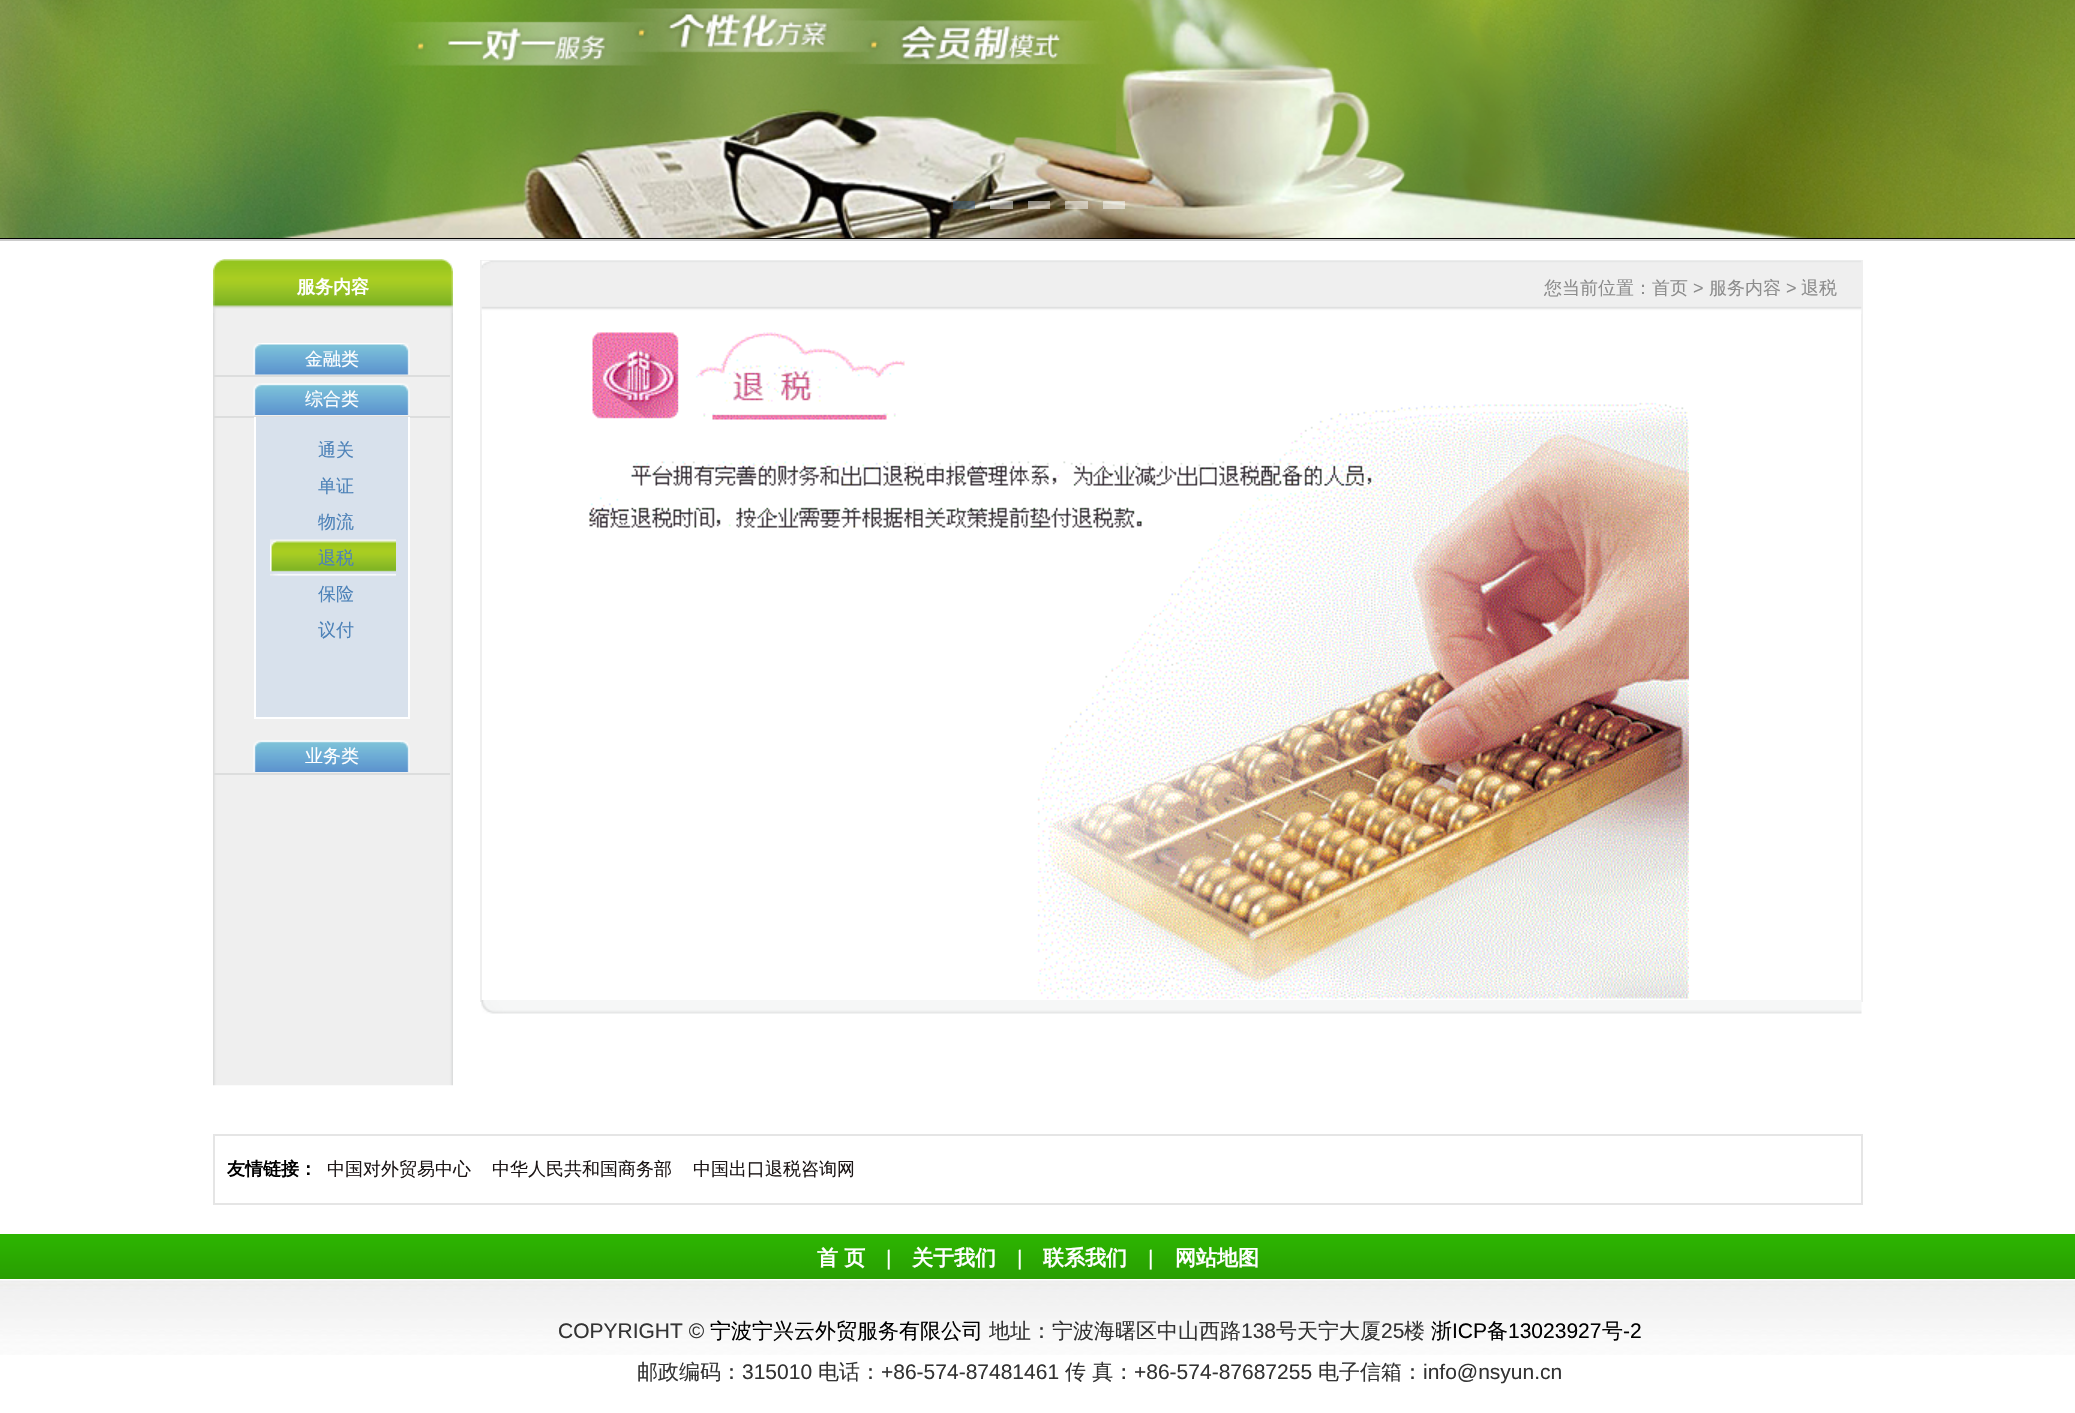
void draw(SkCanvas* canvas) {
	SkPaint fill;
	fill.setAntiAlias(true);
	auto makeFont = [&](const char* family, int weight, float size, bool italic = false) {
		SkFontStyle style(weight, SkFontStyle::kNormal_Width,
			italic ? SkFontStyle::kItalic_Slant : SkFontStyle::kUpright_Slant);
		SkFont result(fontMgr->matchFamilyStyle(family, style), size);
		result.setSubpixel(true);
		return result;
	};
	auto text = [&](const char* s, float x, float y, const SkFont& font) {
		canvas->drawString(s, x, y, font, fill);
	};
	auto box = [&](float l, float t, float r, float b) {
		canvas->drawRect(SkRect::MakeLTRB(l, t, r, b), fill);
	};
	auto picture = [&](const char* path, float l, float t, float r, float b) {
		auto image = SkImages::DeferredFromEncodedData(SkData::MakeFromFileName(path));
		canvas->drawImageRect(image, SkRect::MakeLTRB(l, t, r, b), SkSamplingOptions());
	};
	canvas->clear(0xFFFFFFFF);
	fill.setColor(0xFFCCCCCC);
	box(0, 239, 2075, 241);
	fill.setColor(0xFF000000);
	box(0, 238, 2075, 239);
	picture("image0.png", 0, 0, 2075, 238);
	fill.setColor(0x80375C81);
	box(953, 201, 975, 209);
	fill.setColor(0x80FFFFFF);
	box(990, 201, 1013, 209);
	box(1028, 201, 1050, 209);
	box(1065, 201, 1088, 209);
	box(1103, 201, 1125, 209);
	picture("image1.png", 213, 259, 453, 313);
	picture("image2.png", 213, 313, 453, 1086);
	fill.setColor(0xFFDCDDDD);
	box(213, 375, 450, 377);
	picture("image3.png", 253, 343, 410, 375);
	box(213, 416, 450, 418);
	picture("image4.png", 253, 383, 410, 415);
	fill.setColor(0xFFD8E1EC);
	box(256, 417, 408, 717);
	fill.setColor(0xFFFFFFFF);
	box(408, 417, 410, 719);
	box(254, 717, 410, 719);
	box(254, 417, 256, 719);
	picture("image5.png", 270, 539, 396, 576);
	fill.setColor(0xFFDCDDDD);
	box(213, 773, 450, 775);
	picture("image4.png", 253, 740, 410, 772);
	fill.setStyle(SkPaint::kStroke_Style);
	fill.setStrokeWidth(2);
	fill.setColor(0xFFEFEFEF);
	canvas->drawRect(SkRect::MakeLTRB(481, 261, 1862, 1001), fill);
	picture("image6.png", 481, 260, 1862, 314);
	picture("image7.png", 589, 332, 1689, 999);
	picture("image8.png", 481, 1000, 1862, 1014);
	fill.setColor(0xFFE5E5E5);
	canvas->drawRect(SkRect::MakeLTRB(214, 1135, 1862, 1204), fill);
	picture("image9.png", 0, 1280, 2075, 1355);
	picture("image10.png", 0, 1234, 2075, 1279);
	auto font1 = makeFont("WenQuanYi Zen Hei", 700, 18);
	fill.setStyle(SkPaint::kFill_Style);
	fill.setColor(0xFFFFFFFF);
	text("服务内容", 297, 293, font1);
	auto font2 = makeFont("WenQuanYi Zen Hei", 500, 18);
	text("金融类", 305, 365, font2);
	text("综合类", 305, 405, font2);
	fill.setColor(0xFF4D82B8);
	text("通关", 318, 456, font2);
	text("单证", 318, 492, font2);
	text("物流", 318, 528, font2);
	text("退税", 318, 564, font2);
	text("保险", 318, 600, font2);
	text("议付", 318, 636, font2);
	fill.setColor(0xFFFFFFFF);
	text("业务类", 305, 762, font2);
	fill.setColor(0xFF8C8C8C);
	text("您当前位置：首页", 1544, 294, font2);
	auto font3 = makeFont("Liberation Sans", 400, 18);
	text(">", 1693, 294, font3);
	text("服务内容", 1709, 294, font2);
	text(">", 1786, 294, font3);
	text("退税", 1801, 294, font2);
	fill.setColor(0xFF000000);
	text("友情链接：", 227, 1175, font1);
	fill.setColor(0xFF1C1616);
	text("中国对外贸易中心", 327, 1175, font2);
	text("中华人民共和国商务部", 492, 1175, font2);
	text("中国出口退税咨询网", 693, 1175, font2);
	auto font4 = makeFont("WenQuanYi Zen Hei", 700, 21);
	fill.setColor(0xFFFFFFFF);
	text("首 页", 817, 1265, font4);
	auto font5 = makeFont("Liberation Sans", 400, 21);
	text("|", 886, 1265, font5);
	text("关于我们", 912, 1265, font4);
	text("|", 1017, 1265, font5);
	text("联系我们", 1043, 1265, font4);
	text("|", 1148, 1265, font5);
	text("网站地图", 1175, 1265, font4);
	fill.setColor(0xFF333333);
	text("COPYRIGHT ©", 558, 1338, font5);
	auto font6 = makeFont("WenQuanYi Zen Hei", 500, 21);
	fill.setColor(0xFF000000);
	text("宁波宁兴云外贸服务有限公司", 710, 1338, font6);
	fill.setColor(0xFF333333);
	text("地址：宁波海曙区中山西路", 989, 1338, font6);
	text("138", 1241, 1338, font5);
	text("号天宁大厦", 1276, 1338, font6);
	text("25", 1381, 1338, font5);
	text("楼", 1404, 1338, font6);
	fill.setColor(0xFF000000);
	text("浙", 1431, 1338, font6);
	text("ICP", 1452, 1338, font5);
	text("备", 1487, 1338, font6);
	text("13023927", 1508, 1338, font5);
	text("号", 1602, 1338, font6);
	text("-2", 1623, 1338, font5);
	fill.setColor(0xFF333333);
	text("邮政编码：", 637, 1379, font6);
	text("315010", 742, 1379, font5);
	text("电话：", 818, 1379, font6);
	text("+86-574-87481461", 881, 1379, font5);
	text("传 真：", 1065, 1379, font6);
	text("+86-574-87687255", 1134, 1379, font5);
	text("电子信箱：", 1318, 1379, font6);
	text("info@nsyun.cn", 1423, 1379, font5);
}
